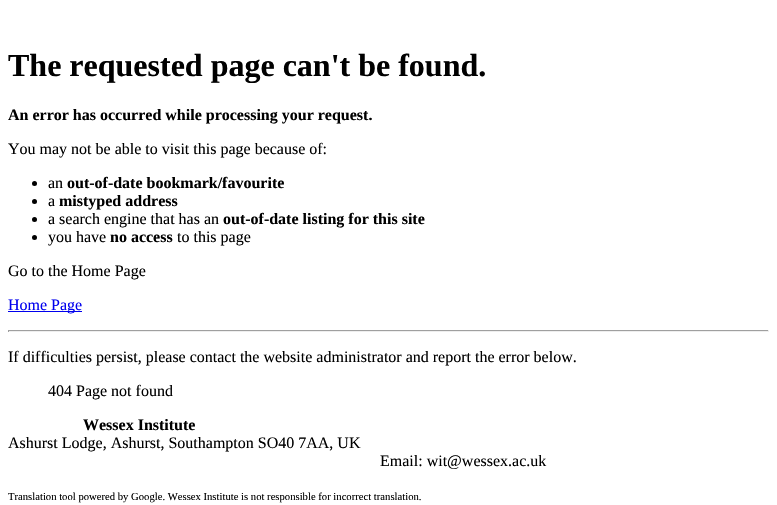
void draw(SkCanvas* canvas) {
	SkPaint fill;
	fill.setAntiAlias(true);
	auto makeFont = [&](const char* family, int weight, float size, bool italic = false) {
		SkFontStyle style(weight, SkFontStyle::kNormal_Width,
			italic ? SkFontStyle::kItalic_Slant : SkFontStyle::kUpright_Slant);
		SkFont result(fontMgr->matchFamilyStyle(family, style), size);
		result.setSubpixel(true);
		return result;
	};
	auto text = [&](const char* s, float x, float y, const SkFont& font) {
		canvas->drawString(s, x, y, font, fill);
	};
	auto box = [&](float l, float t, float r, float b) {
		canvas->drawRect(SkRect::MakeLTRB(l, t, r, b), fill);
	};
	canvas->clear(0xFFFFFFFF);
	fill.setColor(0xFF000000);
	canvas->drawCircle(34.5f, 183.5f, 2.5f, fill);
	canvas->drawCircle(34.5f, 201.5f, 2.5f, fill);
	canvas->drawCircle(34.5f, 219.5f, 2.5f, fill);
	canvas->drawCircle(34.5f, 237.5f, 2.5f, fill);
	fill.setColor(0xFF0000EE);
	box(8, 311, 82, 312);
	fill.setColor(0xFF9F9F9F);
	box(8, 330, 769, 331);
	fill.setColor(0xFFEEEEEE);
	box(768, 330, 769, 332);
	box(8, 331, 769, 332);
	fill.setColor(0xFF9F9F9F);
	box(8, 330, 9, 332);
	auto font1 = makeFont("Liberation Serif", 700, 32);
	fill.setColor(0xFF000000);
	text("The requested page can't be found.", 8, 76, font1);
	auto font2 = makeFont("Liberation Serif", 700, 16);
	text("An error has occurred while processing your request.", 8, 120, font2);
	auto font3 = makeFont("Liberation Serif", 400, 16);
	text("You may not be able to visit this page because of:", 8, 154, font3);
	text("an", 48, 188, font3);
	text("out-of-date bookmark/favourite", 67, 188, font2);
	text("a", 48, 206, font3);
	text("mistyped address", 59, 206, font2);
	text("a search engine that has an", 48, 224, font3);
	text("out-of-date listing for this site", 223, 224, font2);
	text("you have", 48, 242, font3);
	text("no access", 110, 242, font2);
	text("to this page", 177, 242, font3);
	text("Go to the Home Page", 8, 276, font3);
	fill.setColor(0xFF0000EE);
	text("Home Page", 8, 310, font3);
	fill.setColor(0xFF000000);
	text("If difficulties persist, please contact the website administrator and report the error below.", 8, 362, font3);
	text("404 Page not found", 48, 396, font3);
	text("Wessex Institute", 83, 430, font2);
	text("Ashurst Lodge, Ashurst, Southampton SO40 7AA, UK", 8, 448, font3);
	text("Email: wit@wessex.ac.uk", 380, 466, font3);
	auto font4 = makeFont("Liberation Serif", 400, 10.65f);
	text("Translation tool powered by Google. Wessex Institute is not responsible for incorrect translation.", 8, 500, font4);
}
